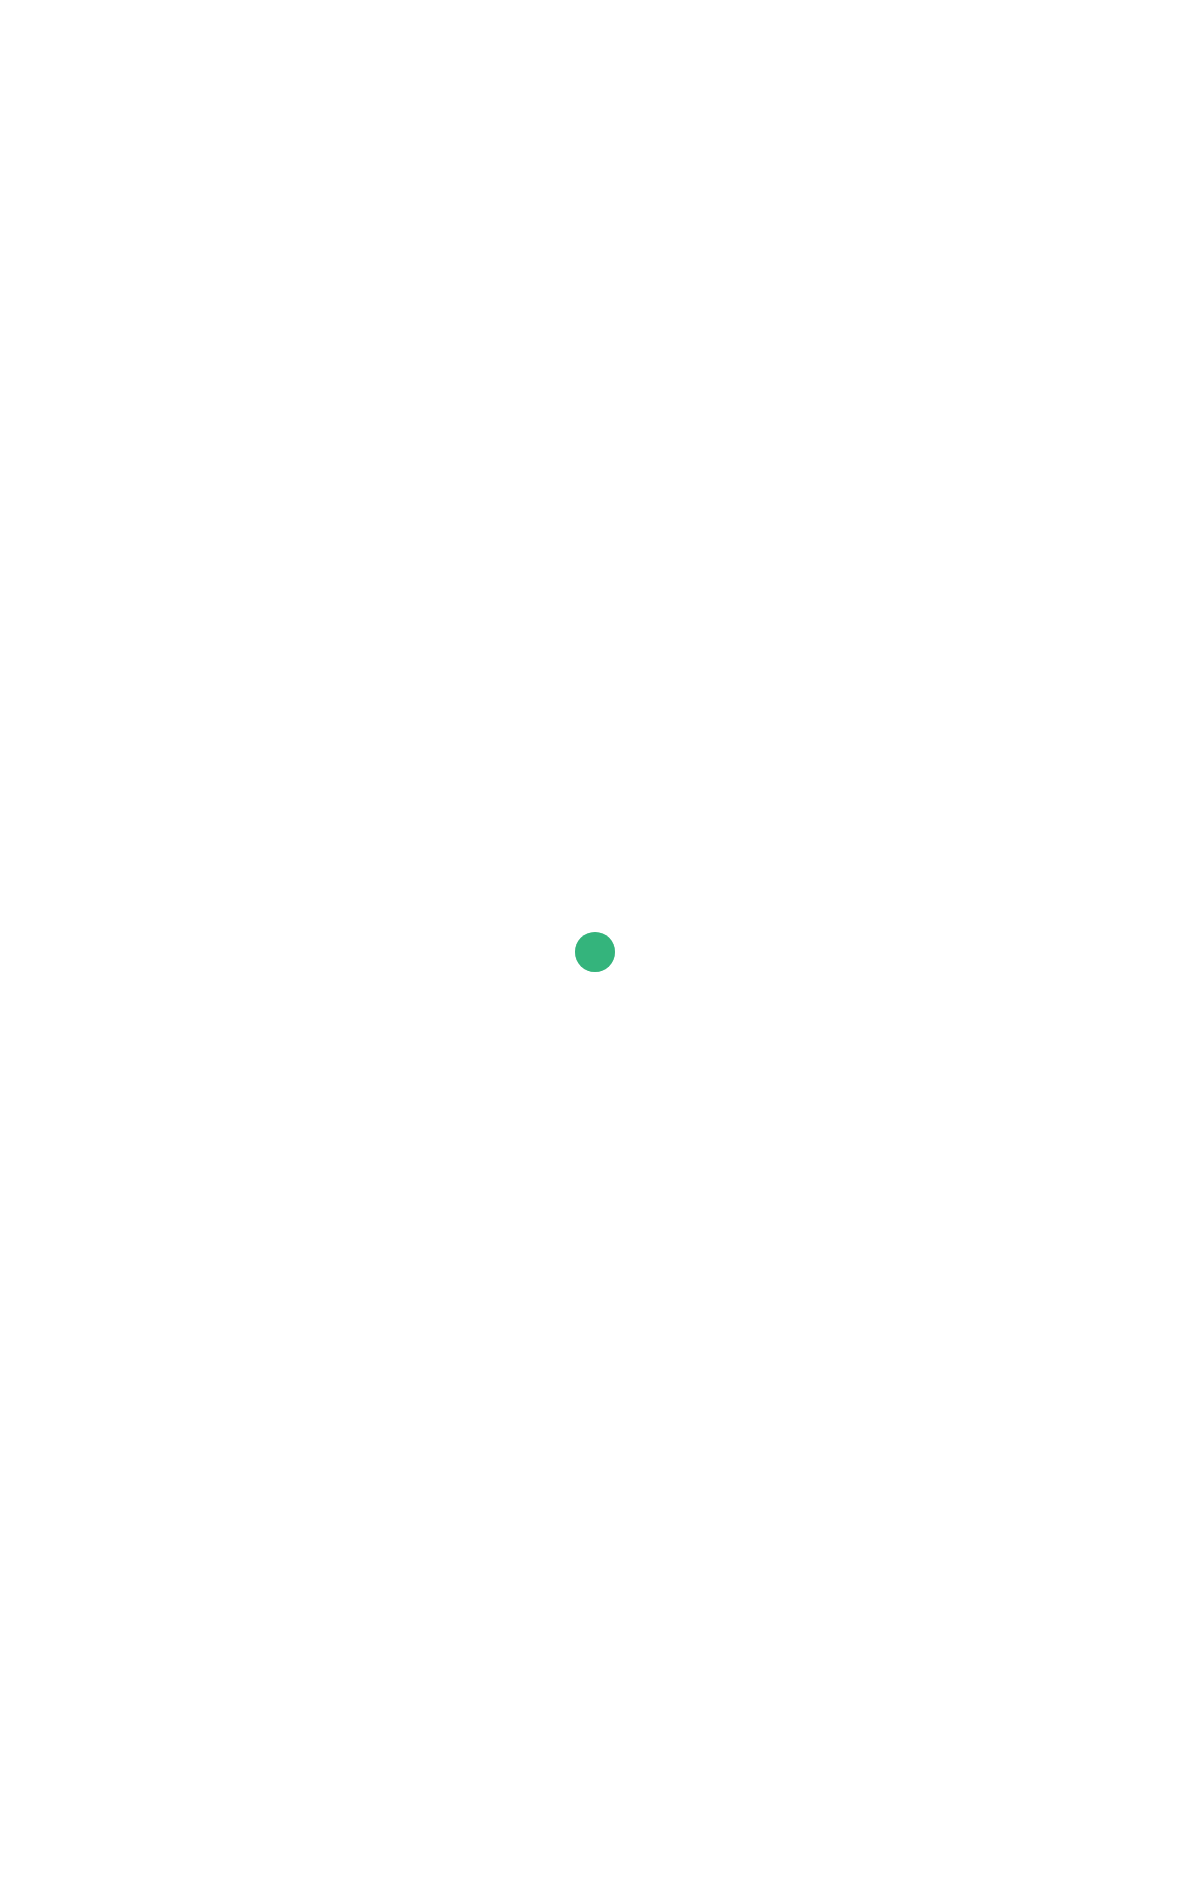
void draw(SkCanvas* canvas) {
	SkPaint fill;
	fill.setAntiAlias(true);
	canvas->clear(0xFFFFFFFF);
	fill.setColor(0xFF6EC9A1);
	canvas->drawCircle(595, 952, 20, fill);
	fill.setColor(0x990DA563);
	canvas->drawCircle(595, 952, 20, fill);
}
